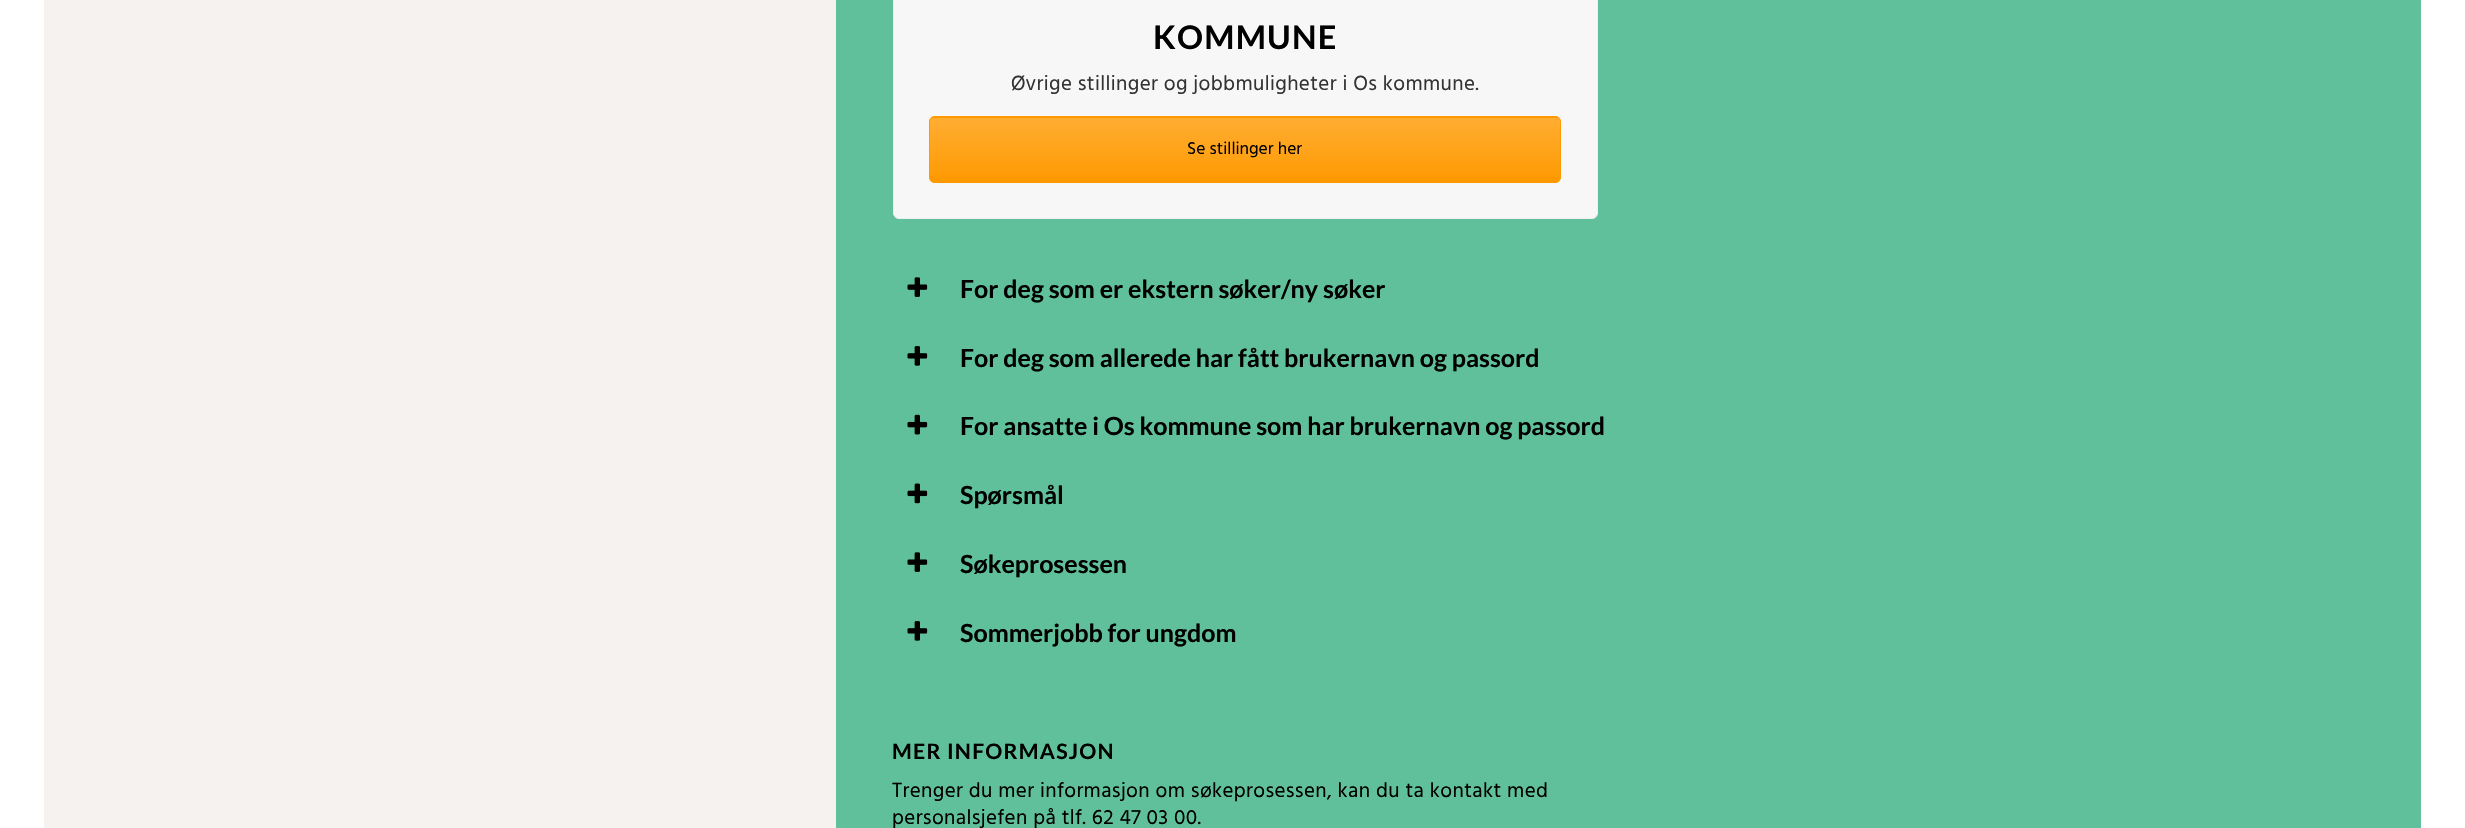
void draw(SkCanvas* canvas) {
	SkPaint fill;
	fill.setAntiAlias(true);
	auto makeFont = [&](const char* family, int weight, float size, bool italic = false) {
		SkFontStyle style(weight, SkFontStyle::kNormal_Width,
			italic ? SkFontStyle::kItalic_Slant : SkFontStyle::kUpright_Slant);
		SkFont result(fontMgr->matchFamilyStyle(family, style), size);
		result.setSubpixel(true);
		return result;
	};
	auto text = [&](const char* s, float x, float y, const SkFont& font) {
		canvas->drawString(s, x, y, font, fill);
	};
	auto spacedText = [&](const char* s, float x, float y, const SkFont& font, const SkPaint& ink, float letter, float word) {
		std::vector<SkGlyphID> glyphs(font.countText(s, strlen(s), SkTextEncoding::kUTF8));
		std::vector<float> xs(glyphs.size());
		font.textToGlyphs(s, strlen(s), SkTextEncoding::kUTF8, glyphs);
		font.getXPos(glyphs, xs, x);
		float extra = 0;
		for (size_t i = 0; i < glyphs.size(); i++) {
			xs[i] += extra;
			extra += letter + word * (glyphs[i] == font.unicharToGlyph(' '));
		}
		canvas->drawTextBlob(SkTextBlob::MakeFromPosHGlyphs(glyphs, xs, y, font), 0, 0, ink);
	};
	auto box = [&](float l, float t, float r, float b) {
		canvas->drawRect(SkRect::MakeLTRB(l, t, r, b), fill);
	};
	auto roundBox = [&](float l, float t, float r, float b, float radius) {
		canvas->drawRoundRect(SkRect::MakeLTRB(l, t, r, b), radius, radius, fill);
	};
	auto picture = [&](const char* path, float l, float t, float r, float b) {
		auto image = SkImages::DeferredFromEncodedData(SkData::MakeFromFileName(path));
		canvas->drawImageRect(image, SkRect::MakeLTRB(l, t, r, b), SkSamplingOptions());
	};
	canvas->clear(0xFFFFFFFF);
	fill.setColor(0xFFF6F2F0);
	box(44, 0, 836, 828);
	fill.setColor(0xFF60C09B);
	box(836, 0, 2421, 828);
	fill.setColor(0xFFF7F7F7);
	canvas->drawRoundRect(SkRect::MakeLTRB(893.5f, -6.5f, 1597.5f, 218.5f), 5.5f, 5.5f, fill);
	fill.setStyle(SkPaint::kStroke_Style);
	fill.setStrokeWidth(1);
	fill.setColor(0xFFF0F0F0);
	canvas->drawRoundRect(SkRect::MakeLTRB(893.5f, -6.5f, 1597.5f, 218.5f), 5.5f, 5.5f, fill);
	fill.setStyle(SkPaint::kFill_Style);
	fill.setColor(0xFFFF9900);
	roundBox(929, 116, 1561, 183, 6);
	canvas->save();
	canvas->clipPath(SkPathBuilder().moveTo(935, 116).lineTo(1555, 116).cubicTo(1558.5f, 116, 1561, 118.5f, 1561, 122).lineTo(1561, 177).cubicTo(1561, 180.5f, 1558.5f, 183, 1555, 183).lineTo(935, 183).cubicTo(931.5f, 183, 929, 180.5f, 929, 177).lineTo(929, 122).cubicTo(929, 118.5f, 931.5f, 116, 935, 116).close().detach(), true);
	{
		const SkColor colors[] = {0x33FFFFFF, 0x03FFFFFF};
		const float stops[] = {0, 1};
		const SkPoint ends[] = {{1245, 117}, {1245, 181}};
		fill.setShader(SkGradientShader::MakeLinear(ends, colors, stops, 2, SkTileMode::kClamp));
		fill.setAlpha(255);
	}
	box(929, 118, 1561, 177);
	canvas->restore();
	fill.setStyle(SkPaint::kStroke_Style);
	fill.setShader(nullptr);
	fill.setColor(0xFFFF9900);
	canvas->drawRoundRect(SkRect::MakeLTRB(929.5f, 116.5f, 1560.5f, 182.5f), 5.5f, 5.5f, fill);
	picture("image0.png", 907, 277, 928, 297);
	picture("image1.png", 907, 346, 928, 366);
	picture("image2.png", 907, 414, 928, 435);
	picture("image3.png", 907, 483, 928, 504);
	picture("image0.png", 907, 552, 928, 572);
	picture("image1.png", 907, 621, 928, 641);
	auto font1 = makeFont("Lato", 700, 32.5f);
	fill.setStyle(SkPaint::kFill_Style);
	fill.setColor(0xFF000000);
	spacedText("KOMMUNE", 1153, 49, font1, fill, 1.25f, 0);
	auto font2 = makeFont("Hind", 400, 21);
	fill.setColor(0xFF333333);
	spacedText("Øvrige stillinger og jobbmuligheter i Os kommune.", 1011, 90, font2, fill, 0.38f, 0);
	auto font3 = makeFont("Hind", 400, 17.5f);
	fill.setColor(0xFF000000);
	text("Se stillinger her", 1187, 154, font3);
	auto font4 = makeFont("Lato", 700, 25);
	text("For deg som er ekstern søker/ny søker", 960, 298, font4);
	text("For deg som allerede har fått brukernavn og passord", 960, 367, font4);
	text("For ansatte i Os kommune som har brukernavn og passord", 960, 435, font4);
	text("Spørsmål", 960, 504, font4);
	text("Søkeprosessen", 960, 573, font4);
	text("Sommerjobb for ungdom", 960, 642, font4);
	auto font5 = makeFont("Lato", 700, 21.25f);
	spacedText("MER INFORMASJON", 892, 759, font5, fill, 1.25f, 0);
	spacedText("Trenger du mer informasjon om søkeprosessen, kan du ta kontakt med", 892, 797, font2, fill, 0.38f, 0);
	spacedText("personalsjefen på tlf. 62 47 03 00.", 892, 824, font2, fill, 0.38f, 0);
}
